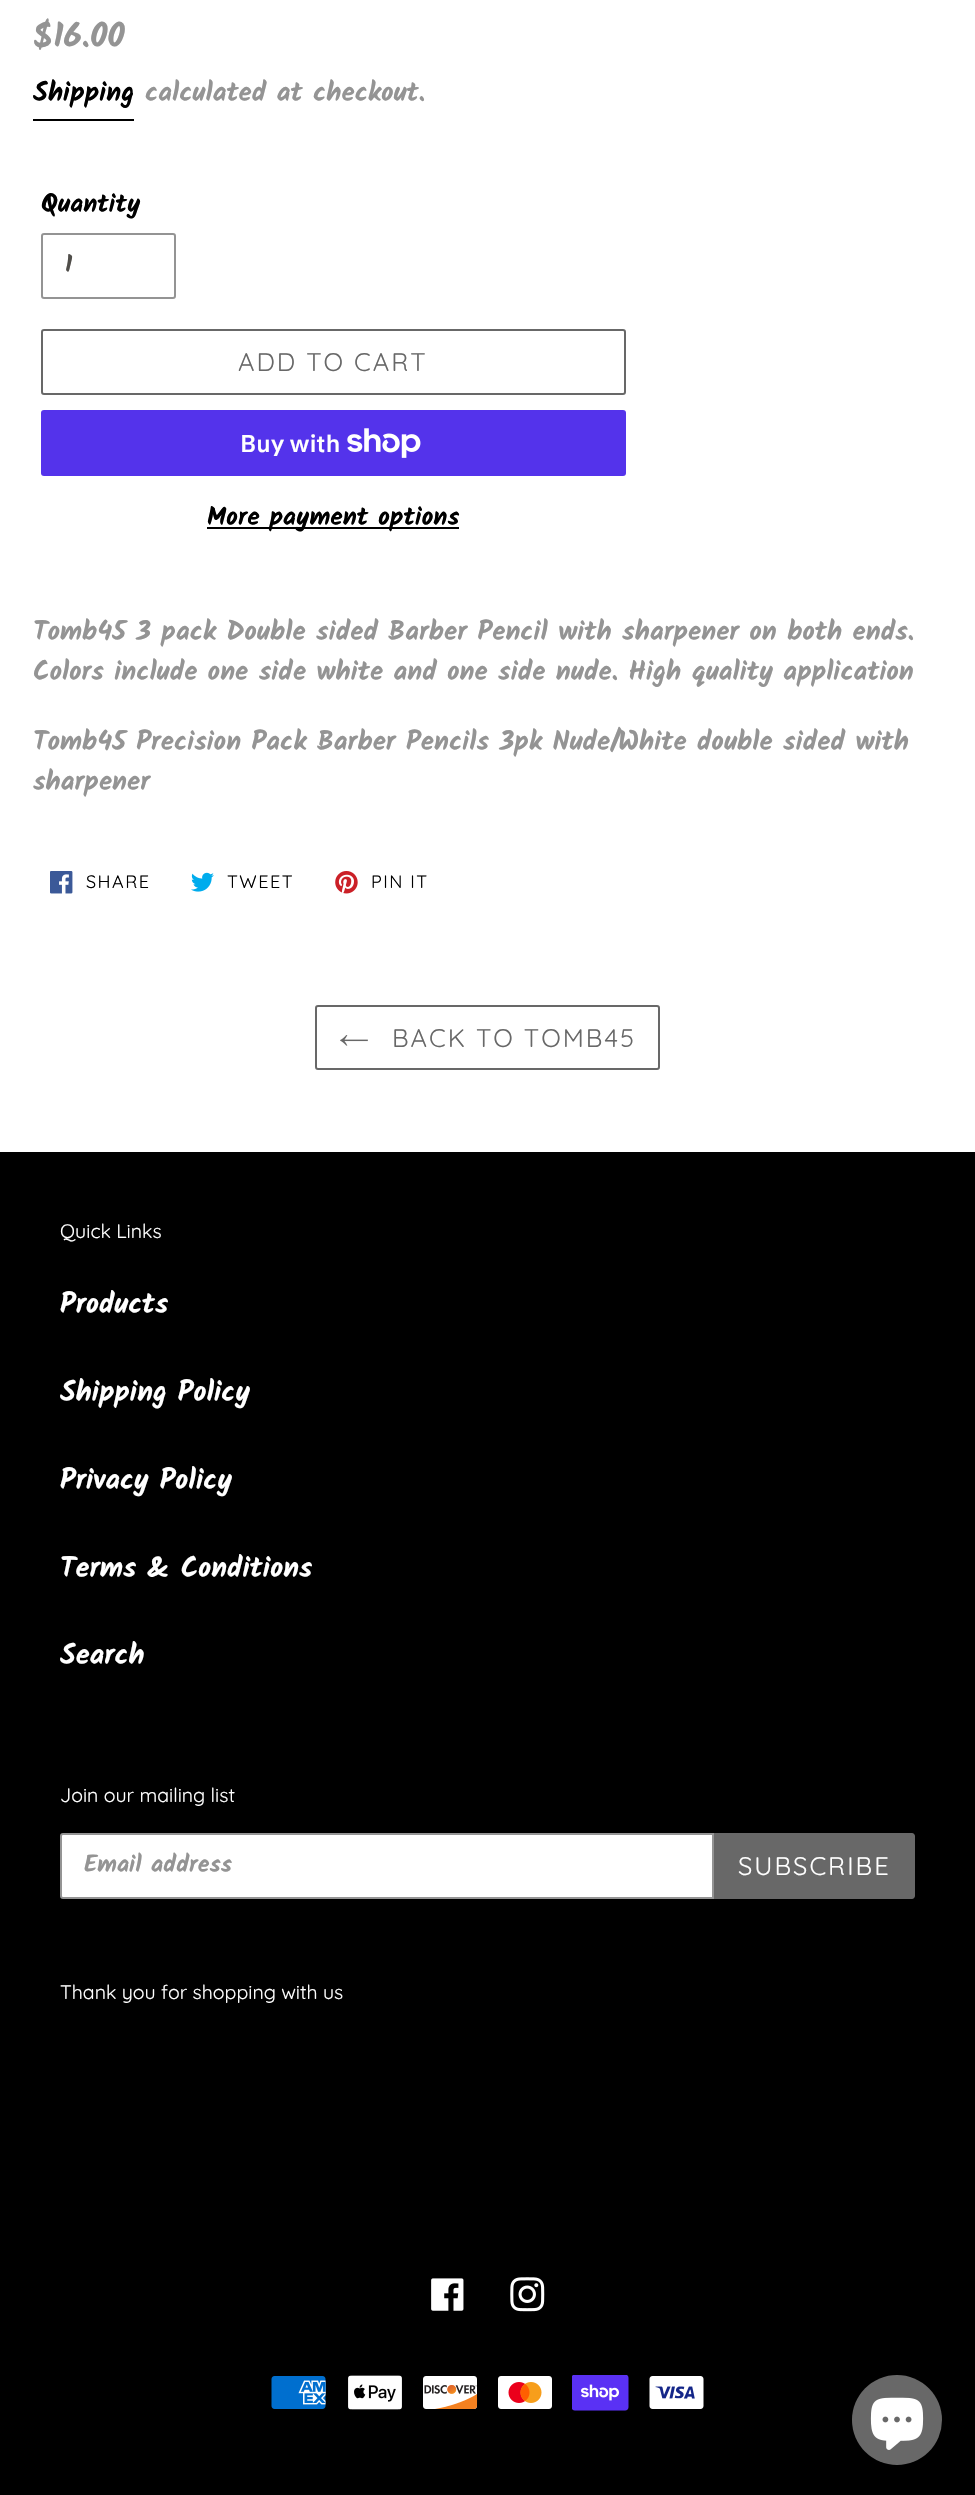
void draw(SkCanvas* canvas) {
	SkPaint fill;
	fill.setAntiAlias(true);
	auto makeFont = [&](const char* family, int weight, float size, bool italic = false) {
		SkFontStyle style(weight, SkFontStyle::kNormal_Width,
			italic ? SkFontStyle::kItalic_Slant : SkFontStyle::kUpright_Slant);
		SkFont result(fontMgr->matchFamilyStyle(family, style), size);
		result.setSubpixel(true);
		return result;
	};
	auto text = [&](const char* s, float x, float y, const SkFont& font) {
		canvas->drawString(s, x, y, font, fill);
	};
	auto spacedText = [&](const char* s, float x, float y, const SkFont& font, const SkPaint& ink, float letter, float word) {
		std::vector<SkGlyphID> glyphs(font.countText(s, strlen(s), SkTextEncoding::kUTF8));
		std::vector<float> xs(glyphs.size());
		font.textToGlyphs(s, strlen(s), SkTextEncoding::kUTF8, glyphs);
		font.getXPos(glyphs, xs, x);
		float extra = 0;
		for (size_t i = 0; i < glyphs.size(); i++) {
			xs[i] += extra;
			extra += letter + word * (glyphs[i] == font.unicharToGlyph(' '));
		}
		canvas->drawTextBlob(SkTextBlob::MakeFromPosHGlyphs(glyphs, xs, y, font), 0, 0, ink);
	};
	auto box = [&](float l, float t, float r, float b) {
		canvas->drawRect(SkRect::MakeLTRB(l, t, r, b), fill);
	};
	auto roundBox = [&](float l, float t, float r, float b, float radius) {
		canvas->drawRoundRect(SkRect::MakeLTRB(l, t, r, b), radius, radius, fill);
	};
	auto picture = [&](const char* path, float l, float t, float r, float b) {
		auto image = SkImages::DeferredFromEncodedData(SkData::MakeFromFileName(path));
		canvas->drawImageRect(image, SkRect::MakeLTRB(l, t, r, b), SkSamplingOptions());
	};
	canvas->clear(0xFFFFFFFF);
	fill.setColor(0xFF000000);
	box(33, 119, 134, 121);
	fill.setStyle(SkPaint::kStroke_Style);
	fill.setStrokeWidth(2);
	fill.setColor(0xFF949494);
	canvas->drawRoundRect(SkRect::MakeLTRB(42, 234, 175, 298), 2, 2, fill);
	fill.setColor(0xFF686868);
	canvas->drawRoundRect(SkRect::MakeLTRB(42, 330, 625, 394), 2, 2, fill);
	fill.setStyle(SkPaint::kFill_Style);
	fill.setColor(0xFF5433EB);
	roundBox(41, 410, 626, 476, 3);
	picture("image0.png", 347, 428, 421, 458);
	fill.setColor(0xFF000000);
	box(207, 527, 459, 529);
	picture("image1.png", 50, 871, 73, 894);
	picture("image2.png", 191, 872, 214, 892);
	picture("image3.png", 335, 871, 358, 894);
	fill.setStyle(SkPaint::kStroke_Style);
	fill.setColor(0xFF686868);
	canvas->drawRoundRect(SkRect::MakeLTRB(316, 1006, 659, 1069), 2, 2, fill);
	picture("image4.png", 340, 1035, 368, 1046);
	fill.setStyle(SkPaint::kFill_Style);
	fill.setColor(0xFF000000);
	box(0, 1152, 975, 2495);
	fill.setColor(0xFFFFFFFF);
	canvas->drawPath(SkPathBuilder().moveTo(63, 1834).lineTo(713, 1834).lineTo(713, 1898).lineTo(63, 1898).cubicTo(62, 1898, 61, 1897, 61, 1896).lineTo(61, 1836).cubicTo(61, 1835, 62, 1834, 63, 1834).close().detach(), fill);
	fill.setStyle(SkPaint::kStroke_Style);
	fill.setColor(0xFF949494);
	canvas->drawPath(SkPathBuilder().moveTo(63, 1834).lineTo(713, 1834).lineTo(713, 1898).lineTo(63, 1898).cubicTo(62, 1898, 61, 1897, 61, 1896).lineTo(61, 1836).cubicTo(61, 1835, 62, 1834, 63, 1834).close().detach(), fill);
	fill.setStyle(SkPaint::kFill_Style);
	fill.setColor(0xFF686868);
	canvas->drawPath(SkPathBuilder().moveTo(714, 1833).lineTo(912, 1833).cubicTo(913.5f, 1833, 915, 1834.5f, 915, 1836).lineTo(915, 1896).cubicTo(915, 1897.5f, 913.5f, 1899, 912, 1899).lineTo(714, 1899).close().detach(), fill);
	picture("image5.png", 431, 2278, 464, 2311);
	picture("image6.png", 510, 2277, 545, 2312);
	picture("image7.png", 271, 2376, 326, 2409);
	picture("image8.png", 348, 2375, 402, 2410);
	picture("image9.png", 423, 2376, 478, 2409);
	picture("image10.png", 498, 2376, 552, 2409);
	picture("image11.png", 572, 2375, 629, 2411);
	picture("image12.png", 649, 2376, 704, 2409);
	canvas->drawCircle(897, 2420, 45, fill);
	picture("image13.png", 870, 2397, 924, 2450);
	auto font1 = makeFont("Kalam", 700, 34);
	fill.setColor(0xFF949494);
	text("$16.00", 33, 47, font1);
	auto font2 = makeFont("Kalam", 700, 27);
	fill.setColor(0xFF000000);
	text("Shipping", 33, 101, font2);
	fill.setColor(0xFF949494);
	text("calculated at checkout.", 145, 101, font2);
	auto font3 = makeFont("Kalam", 700, 25.5f);
	fill.setColor(0xFF000000);
	text("Quantity", 41, 212, font3);
	auto font4 = makeFont("Kalam", 700, 24);
	fill.setColor(0xFF504E4A);
	text("1", 65, 272, font4);
	auto font5 = makeFont("Quicksand", 400, 25.5f);
	fill.setColor(0xFF686868);
	spacedText("ADD TO CART", 238, 371, font5, fill, 2, 0);
	auto font6 = makeFont("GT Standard", 600, 24);
	fill.setColor(0xFFFFFFFF);
	text("Buy with", 240, 452, font6);
	fill.setColor(0xFF000000);
	text("More payment options", 207, 525, font3);
	fill.setColor(0xFF949494);
	text("Tomb45 3 pack Double sided Barber Pencil with sharpener on both ends.", 33, 640, font2);
	text("Colors include one side white and one side nude. High quality application", 33, 680, font2);
	text("Tomb45 Precision Pack Barber Pencils 3pk Nude/White double sided with", 33, 750, font2);
	text("sharpener", 33, 790, font2);
	auto font7 = makeFont("Quicksand", 400, 18);
	fill.setColor(0xFF000000);
	spacedText("SHARE", 86, 888, font7, fill, 1.5f, 0);
	spacedText("TWEET", 227, 888, font7, fill, 1.5f, 0);
	spacedText("PIN IT", 371, 888, font7, fill, 1.5f, 0);
	fill.setColor(0xFF686868);
	spacedText("BACK TO TOMB45", 392, 1047, font5, fill, 2, 0);
	auto font8 = makeFont("Quicksand", 400, 19.5f);
	fill.setColor(0xFFFFFFFF);
	text("Quick Links", 60, 1238, font8);
	auto font9 = makeFont("Kalam", 700, 28.5f);
	text("Products", 60, 1313, font9);
	text("Shipping Policy", 60, 1401, font9);
	text("Privacy Policy", 60, 1489, font9);
	text("Terms & Conditions", 60, 1577, font9);
	text("Search", 60, 1664, font9);
	text("Join our mailing list", 60, 1802, font8);
	fill.setColor(0xFF949494);
	text("Email address", 84, 1872, font4);
	fill.setColor(0xFFFFFFFF);
	spacedText("SUBSCRIBE", 738, 1875, font5, fill, 2, 0);
	text("Thank you for shopping with us", 60, 1999, font8);
}
